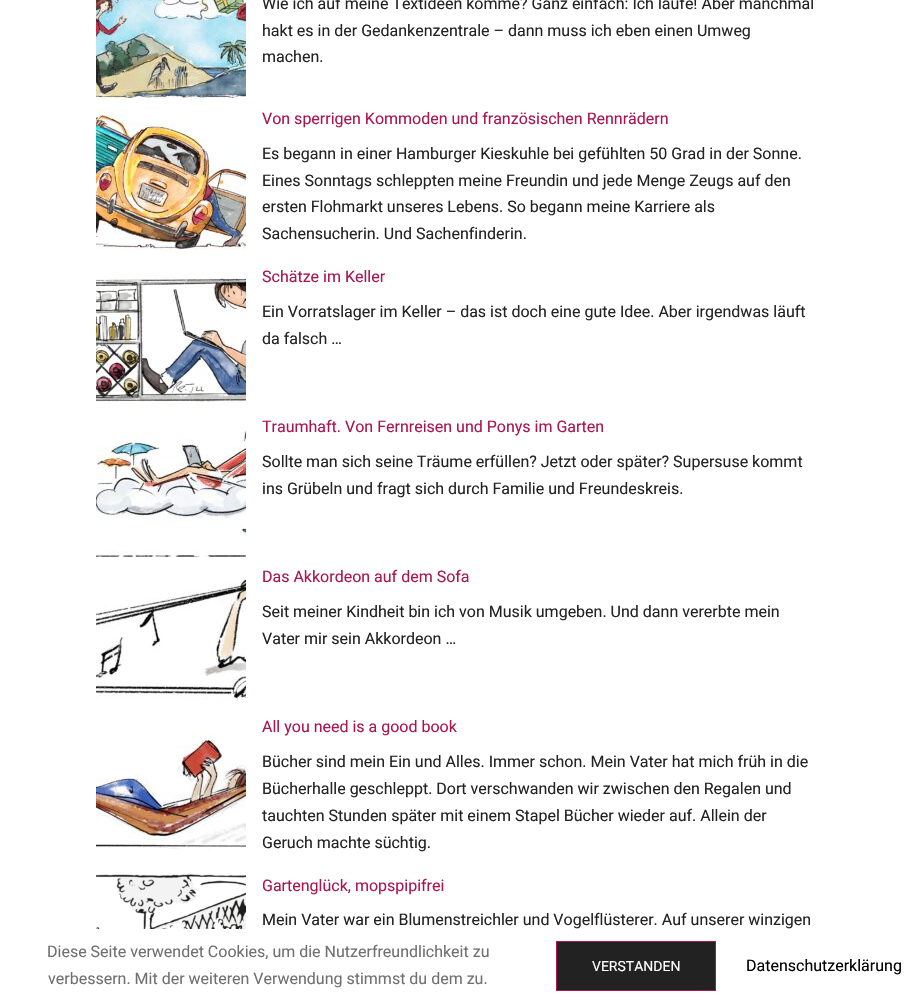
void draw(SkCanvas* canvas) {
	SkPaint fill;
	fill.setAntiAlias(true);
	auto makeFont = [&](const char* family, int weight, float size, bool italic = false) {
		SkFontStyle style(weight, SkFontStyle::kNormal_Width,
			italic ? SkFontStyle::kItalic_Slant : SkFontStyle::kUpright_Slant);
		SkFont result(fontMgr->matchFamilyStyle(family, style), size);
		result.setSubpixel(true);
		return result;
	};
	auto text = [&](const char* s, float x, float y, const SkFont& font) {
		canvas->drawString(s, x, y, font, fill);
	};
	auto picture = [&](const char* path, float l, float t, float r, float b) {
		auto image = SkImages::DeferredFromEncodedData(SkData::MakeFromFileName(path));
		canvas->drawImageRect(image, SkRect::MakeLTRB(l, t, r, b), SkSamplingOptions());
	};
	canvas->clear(0xFFFFFFFF);
	picture("image0.png", 96, 0, 246, 100);
	picture("image1.png", 96, 106, 246, 250);
	picture("image2.png", 96, 272, 246, 408);
	picture("image3.png", 96, 430, 246, 559);
	picture("image4.png", 96, 578, 246, 700);
	picture("image5.png", 96, 730, 246, 849);
	picture("image6.png", 96, 874, 246, 929);
	fill.setColor(0xFF222222);
	canvas->drawRect(SkRect::MakeLTRB(556.5f, 941.5f, 715.5f, 990.5f), fill);
	fill.setStyle(SkPaint::kStroke_Style);
	fill.setStrokeWidth(1);
	fill.setColor(0xFFAD154F);
	canvas->drawRect(SkRect::MakeLTRB(556.5f, 941.5f, 715.5f, 990.5f), fill);
	auto font1 = makeFont("Roboto", 400, 16);
	fill.setStyle(SkPaint::kFill_Style);
	fill.setColor(0xFF232323);
	text("Wie ich auf meine Textideen komme? Ganz einfach: Ich laufe! Aber manchmal", 262, 9, font1);
	text("hakt es in der Gedankenzentrale – dann muss ich eben einen Umweg", 262, 36, font1);
	text("machen.", 262, 62, font1);
	fill.setColor(0xFFAD154F);
	text("Von sperrigen Kommoden und französischen Rennrädern", 262, 124, font1);
	fill.setColor(0xFF232323);
	text("Es begann in einer Hamburger Kieskuhle bei gefühlten 50 Grad in der Sonne.", 262, 159, font1);
	text("Eines Sonntags schleppten meine Freundin und jede Menge Zeugs auf den", 262, 186, font1);
	text("ersten Flohmarkt unseres Lebens. So begann meine Karriere als", 262, 212, font1);
	text("Sachensucherin. Und Sachenfinderin.", 262, 239, font1);
	fill.setColor(0xFFAD154F);
	text("Schätze im Keller", 262, 282, font1);
	fill.setColor(0xFF232323);
	text("Ein Vorratslager im Keller – das ist doch eine gute Idee. Aber irgendwas läuft", 262, 317, font1);
	text("da falsch …", 262, 344, font1);
	fill.setColor(0xFFAD154F);
	text("Traumhaft. Von Fernreisen und Ponys im Garten", 262, 432, font1);
	fill.setColor(0xFF232323);
	text("Sollte man sich seine Träume erfüllen? Jetzt oder später? Supersuse kommt", 262, 467, font1);
	text("ins Grübeln und fragt sich durch Familie und Freundeskreis.", 262, 494, font1);
	fill.setColor(0xFFAD154F);
	text("Das Akkordeon auf dem Sofa", 262, 582, font1);
	fill.setColor(0xFF232323);
	text("Seit meiner Kindheit bin ich von Musik umgeben. Und dann vererbte mein", 262, 617, font1);
	text("Vater mir sein Akkordeon …", 262, 644, font1);
	fill.setColor(0xFFAD154F);
	text("All you need is a good book", 262, 732, font1);
	fill.setColor(0xFF232323);
	text("Bücher sind mein Ein und Alles. Immer schon. Mein Vater hat mich früh in die", 262, 767, font1);
	text("Bücherhalle geschleppt. Dort verschwanden wir zwischen den Regalen und", 262, 794, font1);
	text("tauchten Stunden später mit einem Stapel Bücher wieder auf. Allein der", 262, 821, font1);
	text("Geruch machte süchtig.", 262, 848, font1);
	fill.setColor(0xFFAD154F);
	text("Gartenglück, mopspipifrei", 262, 891, font1);
	fill.setColor(0xFF232323);
	text("Mein Vater war ein Blumenstreichler und Vogelflüsterer. Auf unserer winzigen", 262, 925, font1);
	fill.setColor(0xFF707070);
	text("Diese Seite verwendet Cookies, um die Nutzerfreundlichkeit zu", 47, 957, font1);
	text("verbessern. Mit der weiteren Verwendung stimmst du dem zu.", 48, 984, font1);
	auto font2 = makeFont("Roboto", 400, 14);
	fill.setColor(0xFFFFFFFF);
	text("VERSTANDEN", 592, 971, font2);
	fill.setColor(0xFF000000);
	text("Datenschutzerklärung", 746, 971, font1);
}
